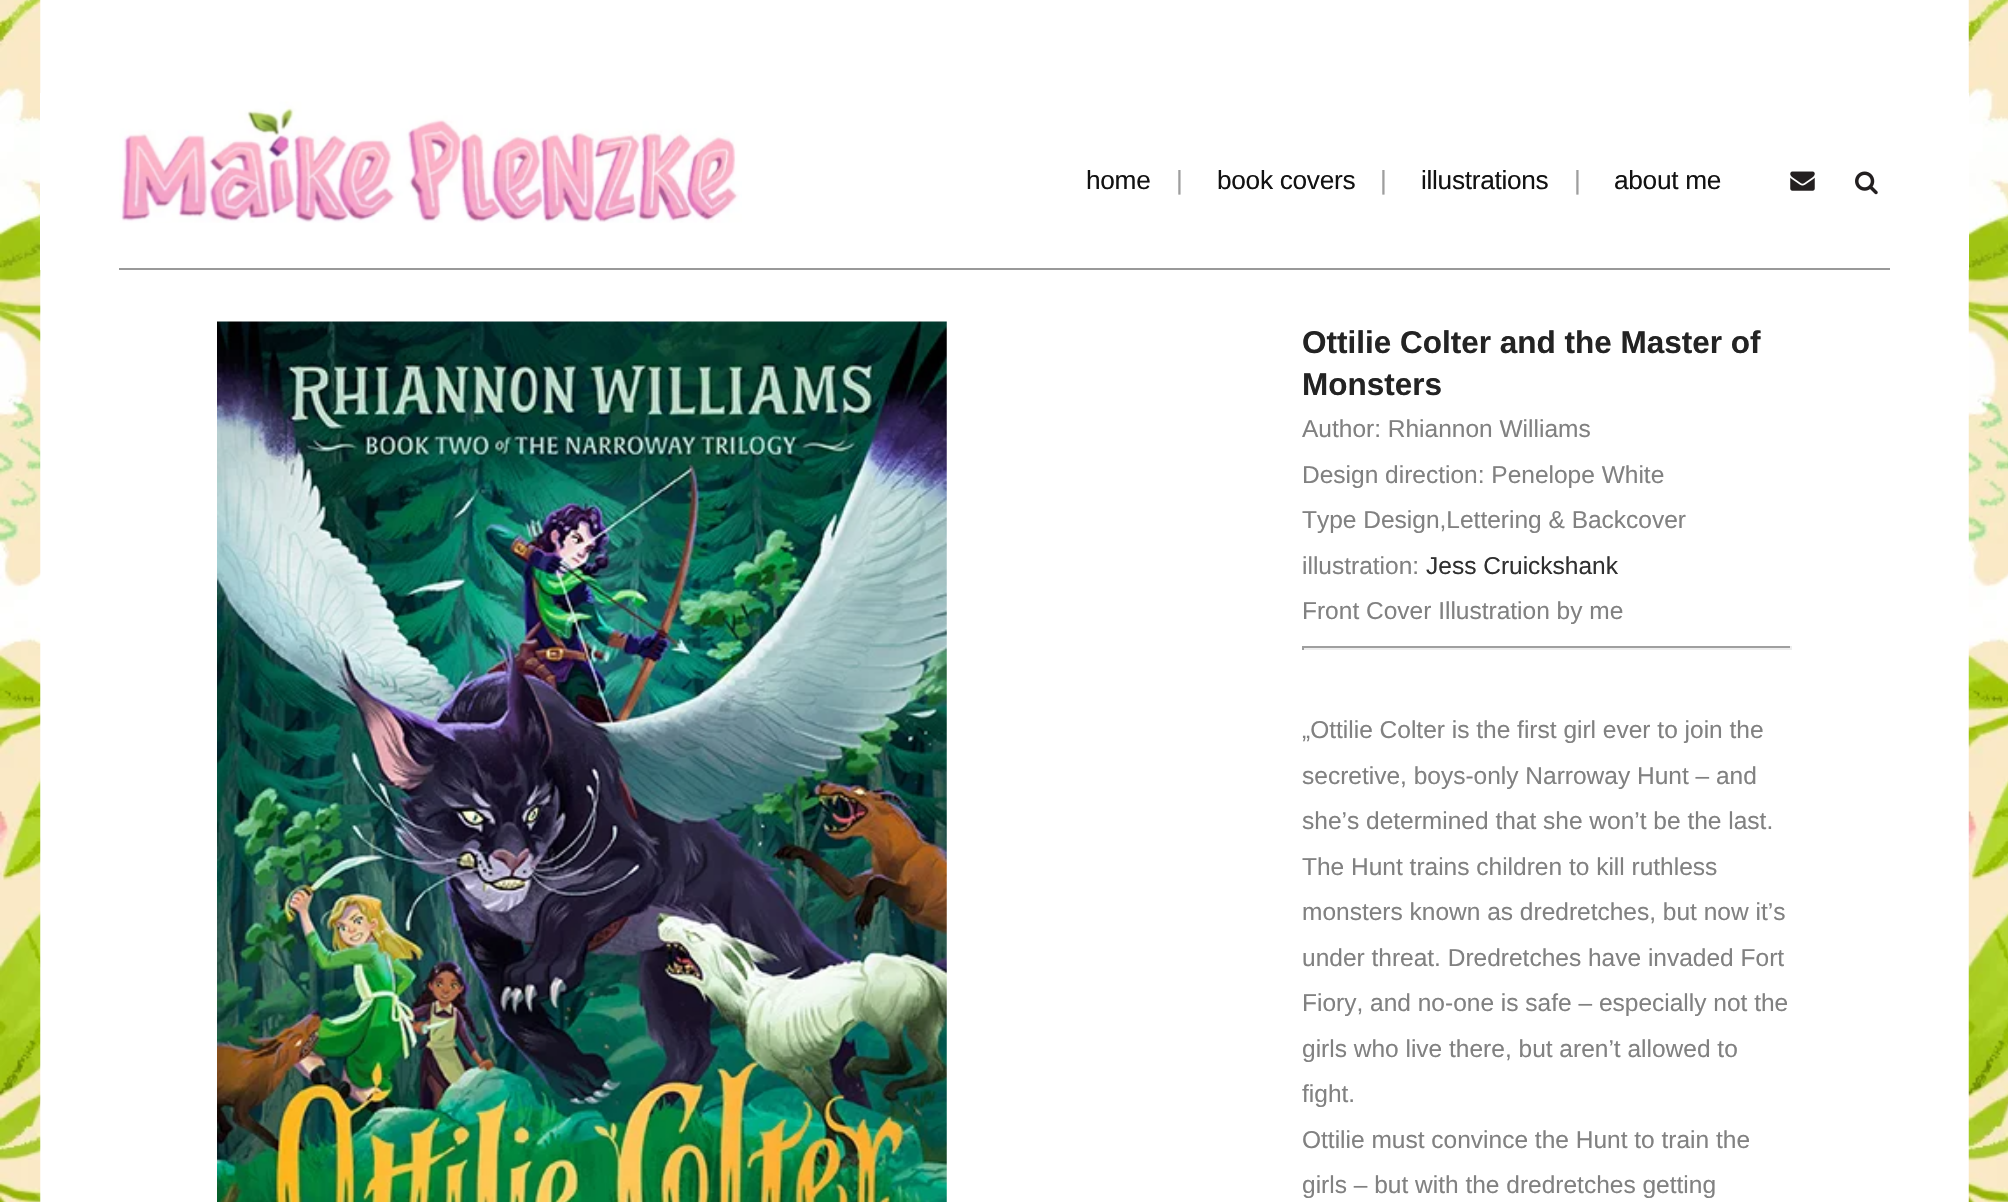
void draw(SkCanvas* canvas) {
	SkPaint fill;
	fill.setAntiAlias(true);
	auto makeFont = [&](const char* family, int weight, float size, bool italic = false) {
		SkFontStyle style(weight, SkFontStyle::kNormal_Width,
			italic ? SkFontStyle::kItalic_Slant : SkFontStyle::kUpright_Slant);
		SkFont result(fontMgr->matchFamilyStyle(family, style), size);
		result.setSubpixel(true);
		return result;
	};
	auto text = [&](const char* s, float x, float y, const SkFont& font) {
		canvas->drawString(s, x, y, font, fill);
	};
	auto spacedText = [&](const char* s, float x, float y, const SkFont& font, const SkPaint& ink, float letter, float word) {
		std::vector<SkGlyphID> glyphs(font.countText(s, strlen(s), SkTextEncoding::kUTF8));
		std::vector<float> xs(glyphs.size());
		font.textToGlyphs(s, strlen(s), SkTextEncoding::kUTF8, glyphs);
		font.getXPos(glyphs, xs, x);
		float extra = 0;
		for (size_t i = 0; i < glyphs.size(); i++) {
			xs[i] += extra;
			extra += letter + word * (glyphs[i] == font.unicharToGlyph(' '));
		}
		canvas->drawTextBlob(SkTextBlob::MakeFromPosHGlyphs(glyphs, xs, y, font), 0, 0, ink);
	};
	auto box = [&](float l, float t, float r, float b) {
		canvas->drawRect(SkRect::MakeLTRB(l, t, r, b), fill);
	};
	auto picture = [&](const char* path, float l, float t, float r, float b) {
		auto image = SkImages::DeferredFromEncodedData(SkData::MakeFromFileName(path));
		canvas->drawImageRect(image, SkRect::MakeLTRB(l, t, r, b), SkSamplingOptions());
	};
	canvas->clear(0xFFFFFFFF);
	picture("image3.png", 0, 0, 41, 1202);
	picture("image5.png", 1968, 0, 2008, 1202);
	fill.setColor(0xFFFFFFFF);
	box(40, 93, 1969, 270);
	fill.setColor(0xFF999999);
	box(119, 268, 1890, 270);
	picture("image0.png", 119, 101, 742, 223);
	picture("image1.png", 1790, 171, 1815, 191);
	picture("image2.png", 1855, 171, 1878, 195);
	picture("image4.png", 217, 321, 947, 1202);
	fill.setColor(0xFF9F9F9F);
	box(1302, 646, 1792, 648);
	fill.setColor(0xFFEEEEEE);
	box(1790, 646, 1792, 650);
	box(1302, 648, 1792, 650);
	fill.setColor(0xFF9F9F9F);
	box(1302, 646, 1304, 650);
	auto font1 = makeFont("Liberation Sans", 400, 26.25f);
	fill.setColor(0xFF121212);
	spacedText("home", 1086, 189, font1, fill, -0.3f, 0);
	fill.setColor(0xFF9E9E9E);
	text("|", 1176, 189, font1);
	fill.setColor(0xFF121212);
	spacedText("book covers", 1217, 189, font1, fill, -0.3f, 0);
	fill.setColor(0xFF9E9E9E);
	text("|", 1380, 189, font1);
	fill.setColor(0xFF121212);
	spacedText("illustrations", 1421, 189, font1, fill, -0.3f, 0);
	fill.setColor(0xFF9E9E9E);
	text("|", 1574, 189, font1);
	fill.setColor(0xFF121212);
	spacedText("about me", 1614, 189, font1, fill, -0.3f, 0);
	auto font2 = makeFont("Liberation Sans", 700, 31.5f);
	fill.setColor(0xFF232323);
	text("Ottilie Colter and the Master of", 1302, 353, font2);
	text("Monsters", 1302, 395, font2);
	auto font3 = makeFont("Liberation Sans", 400, 24.5f);
	fill.setColor(0xFF818181);
	text("Author: Rhiannon Williams", 1302, 437, font3);
	text("Design direction: Penelope White", 1302, 483, font3);
	text("Type Design,Lettering & Backcover", 1302, 528, font3);
	text("illustration:", 1302, 574, font3);
	fill.setColor(0xFF303030);
	text("Jess Cruickshank", 1426, 574, font3);
	fill.setColor(0xFF818181);
	text("Front Cover Illustration by me", 1302, 619, font3);
	text("„Ottilie Colter is the first girl ever to join the", 1302, 738, font3);
	text("secretive, boys-only Narroway Hunt – and", 1302, 784, font3);
	text("she’s determined that she won’t be the last.", 1302, 829, font3);
	text("The Hunt trains children to kill ruthless", 1302, 875, font3);
	text("monsters known as dredretches, but now it’s", 1302, 920, font3);
	text("under threat. Dredretches have invaded Fort", 1302, 966, font3);
	text("Fiory, and no-one is safe – especially not the", 1302, 1011, font3);
	text("girls who live there, but aren’t allowed to", 1302, 1057, font3);
	text("fight.", 1302, 1102, font3);
	text("Ottilie must convince the Hunt to train the", 1302, 1148, font3);
	text("girls – but with the dredretches getting", 1302, 1193, font3);
}
